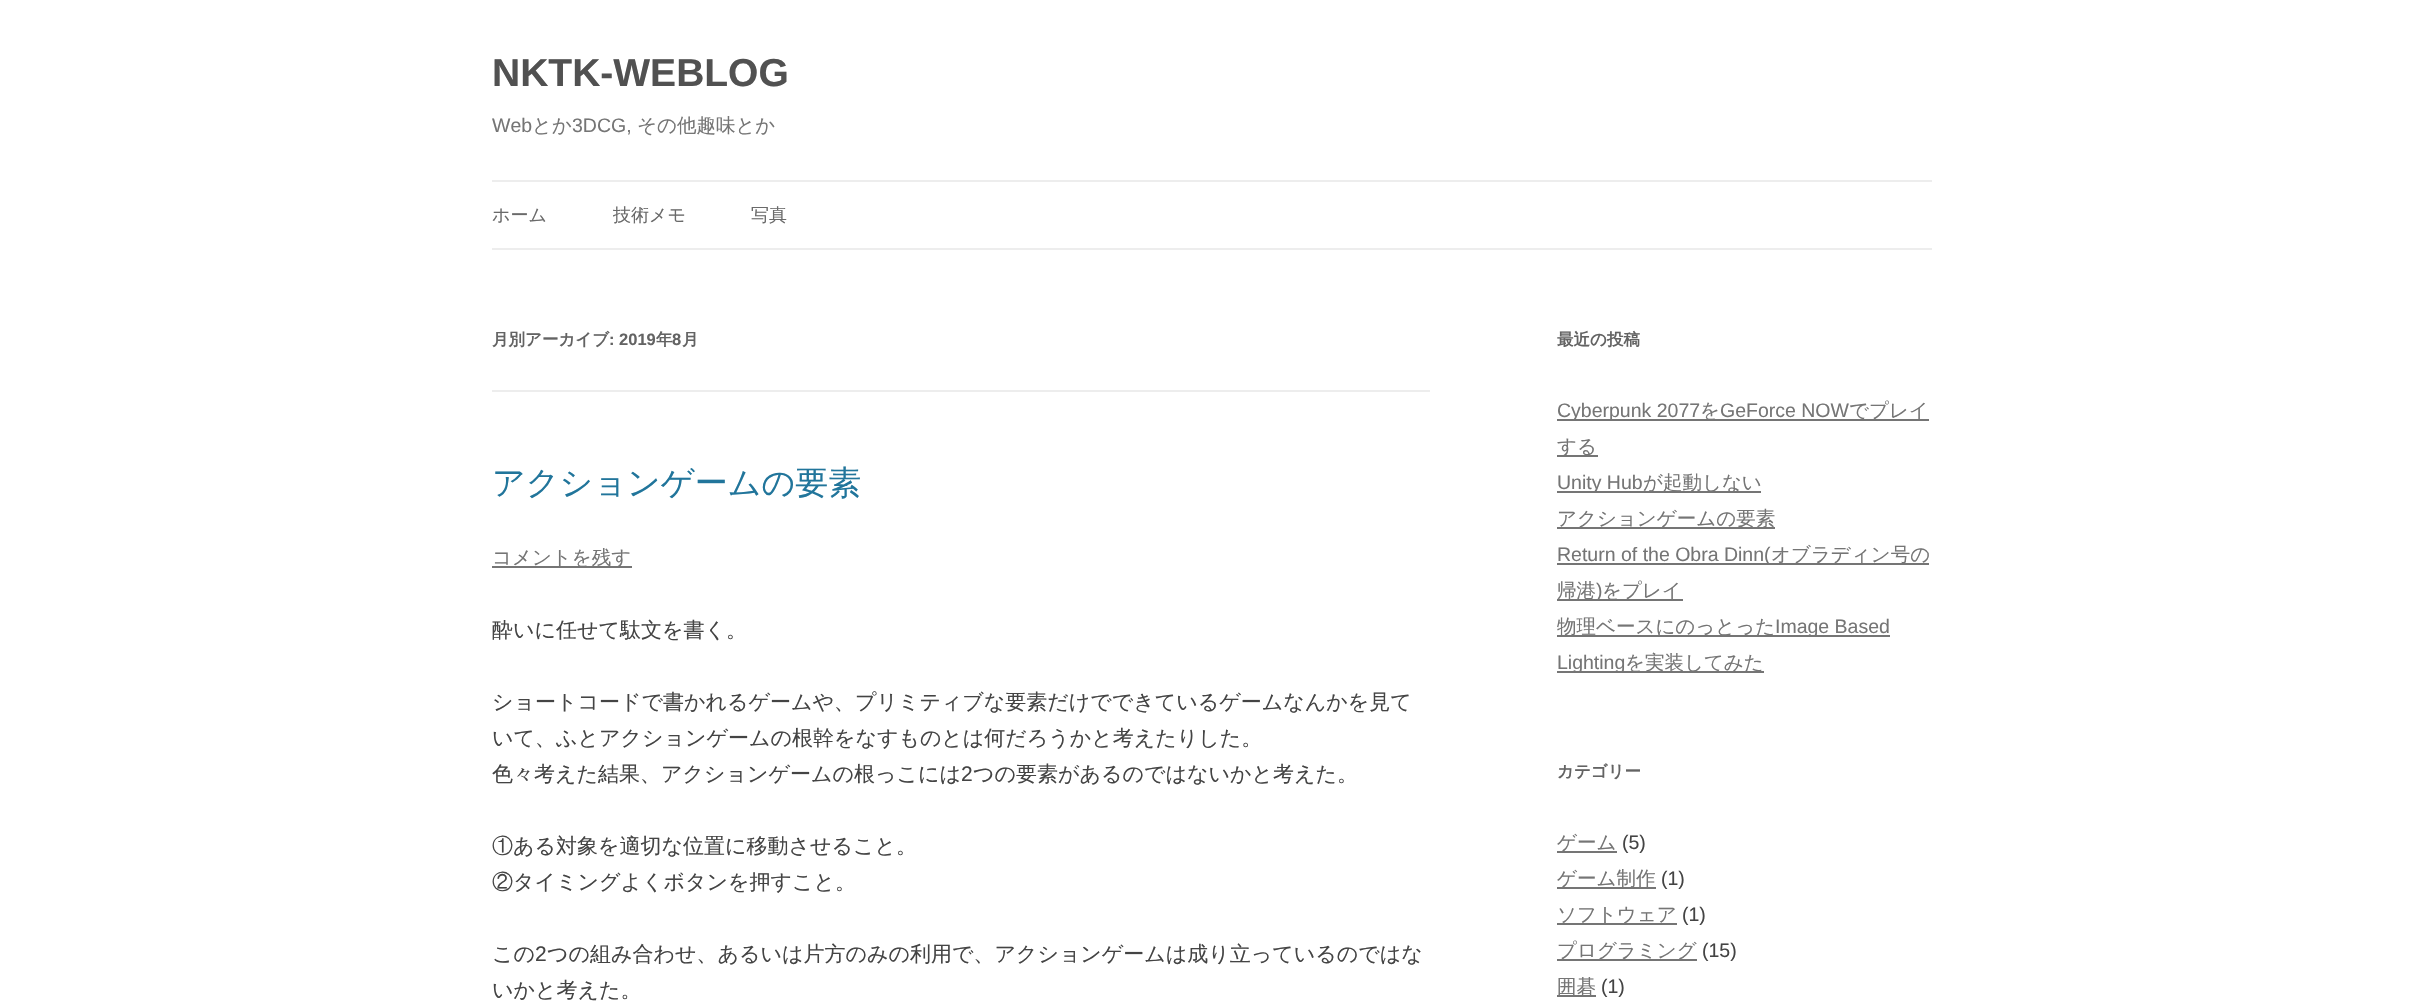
void draw(SkCanvas* canvas) {
	SkPaint fill;
	fill.setAntiAlias(true);
	auto makeFont = [&](const char* family, int weight, float size, bool italic = false) {
		SkFontStyle style(weight, SkFontStyle::kNormal_Width,
			italic ? SkFontStyle::kItalic_Slant : SkFontStyle::kUpright_Slant);
		SkFont result(fontMgr->matchFamilyStyle(family, style), size);
		result.setSubpixel(true);
		return result;
	};
	auto text = [&](const char* s, float x, float y, const SkFont& font) {
		canvas->drawString(s, x, y, font, fill);
	};
	auto box = [&](float l, float t, float r, float b) {
		canvas->drawRect(SkRect::MakeLTRB(l, t, r, b), fill);
	};
	canvas->clear(0xFFFFFFFF);
	fill.setColor(0xFFEDEDED);
	box(492, 180, 1932, 182);
	box(492, 248, 1932, 250);
	box(492, 390, 1430, 392);
	fill.setColor(0xFF757575);
	box(492, 566, 632, 568);
	box(1557, 419, 1929, 421);
	box(1557, 455, 1598, 457);
	box(1557, 491, 1761, 493);
	box(1557, 527, 1775, 529);
	box(1557, 563, 1929, 565);
	box(1557, 599, 1683, 601);
	box(1557, 635, 1890, 637);
	box(1557, 671, 1764, 673);
	box(1557, 851, 1617, 853);
	box(1557, 887, 1656, 889);
	box(1557, 923, 1677, 925);
	box(1557, 959, 1697, 961);
	box(1557, 995, 1596, 997);
	auto font1 = makeFont("Liberation Sans", 700, 39);
	fill.setColor(0xFF515151);
	text("NKTK-WEBLOG", 492, 86, font1);
	auto font2 = makeFont("Liberation Sans", 400, 19.5f);
	fill.setColor(0xFF757575);
	text("Web", 492, 132, font2);
	auto font3 = makeFont("WenQuanYi Zen Hei", 500, 19.5f);
	text("とか", 532, 132, font3);
	text("3DCG,", 572, 132, font2);
	text("その他趣味とか", 637, 132, font3);
	auto font4 = makeFont("WenQuanYi Zen Hei", 500, 18);
	fill.setColor(0xFF6A6A6A);
	text("ホーム", 492, 221, font4);
	text("技術メモ", 613, 221, font4);
	text("写真", 751, 221, font4);
	auto font5 = makeFont("WenQuanYi Zen Hei", 700, 16.5f);
	fill.setColor(0xFF636363);
	text("月別アーカイブ", 492, 345, font5);
	auto font6 = makeFont("Liberation Sans", 700, 16.5f);
	text(": 2019", 609, 345, font6);
	text("年", 656, 345, font5);
	text("8", 672, 345, font6);
	text("月", 682, 345, font5);
	auto font7 = makeFont("WenQuanYi Zen Hei", 500, 33);
	fill.setColor(0xFF21759B);
	text("アクションゲームの要素", 492, 494, font7);
	fill.setColor(0xFF757575);
	text("コメントを残す", 492, 564, font3);
	auto font8 = makeFont("WenQuanYi Zen Hei", 500, 21);
	fill.setColor(0xFF444444);
	text("酔いに任せて駄文を書く。", 492, 637, font8);
	text("ショートコードで書かれるゲームや、プリミティブな要素だけでできているゲームなんかを見て", 492, 709, font8);
	text("いて、ふとアクションゲームの根幹をなすものとは何だろうかと考えたりした。", 492, 745, font8);
	text("色々考えた結果、アクションゲームの根っこには", 492, 781, font8);
	auto font9 = makeFont("Liberation Sans", 400, 21);
	text("2", 961, 781, font9);
	text("つの要素があるのではないかと考えた。", 973, 781, font8);
	text("①ある対象を適切な位置に移動させること。", 492, 853, font8);
	text("②タイミングよくボタンを押すこと。", 492, 889, font8);
	text("この", 492, 961, font8);
	text("2", 535, 961, font9);
	text("つの組み合わせ、あるいは片方のみの利用で、アクションゲームは成り立っているのではな", 547, 961, font8);
	text("いかと考えた。", 492, 997, font8);
	fill.setColor(0xFF636363);
	text("最近の投稿", 1557, 345, font5);
	fill.setColor(0xFF757575);
	text("Cyberpunk 2077", 1557, 417, font2);
	text("を", 1700, 417, font3);
	text("GeForce NOW", 1720, 417, font2);
	text("でプレイ", 1849, 417, font3);
	text("する", 1557, 453, font3);
	text("Unity Hub", 1557, 489, font2);
	text("が起動しない", 1643, 489, font3);
	text("アクションゲームの要素", 1557, 525, font3);
	text("Return of the Obra Dinn(", 1557, 561, font2);
	text("オブラディン号の", 1771, 561, font3);
	text("帰港", 1557, 597, font3);
	text(")", 1596, 597, font2);
	text("をプレイ", 1602, 597, font3);
	text("物理ベースにのっとった", 1557, 633, font3);
	text("Image Based", 1775, 633, font2);
	text("Lighting", 1557, 669, font2);
	text("を実装してみた", 1625, 669, font3);
	fill.setColor(0xFF636363);
	text("カテゴリー", 1557, 777, font5);
	fill.setColor(0xFF757575);
	text("ゲーム", 1557, 849, font3);
	fill.setColor(0xFF444444);
	text("(5)", 1622, 849, font2);
	fill.setColor(0xFF757575);
	text("ゲーム制作", 1557, 885, font3);
	fill.setColor(0xFF444444);
	text("(1)", 1661, 885, font2);
	fill.setColor(0xFF757575);
	text("ソフトウェア", 1557, 921, font3);
	fill.setColor(0xFF444444);
	text("(1)", 1682, 921, font2);
	fill.setColor(0xFF757575);
	text("プログラミング", 1557, 957, font3);
	fill.setColor(0xFF444444);
	text("(15)", 1702, 957, font2);
	fill.setColor(0xFF757575);
	text("囲碁", 1557, 993, font3);
	fill.setColor(0xFF444444);
	text("(1)", 1601, 993, font2);
}
